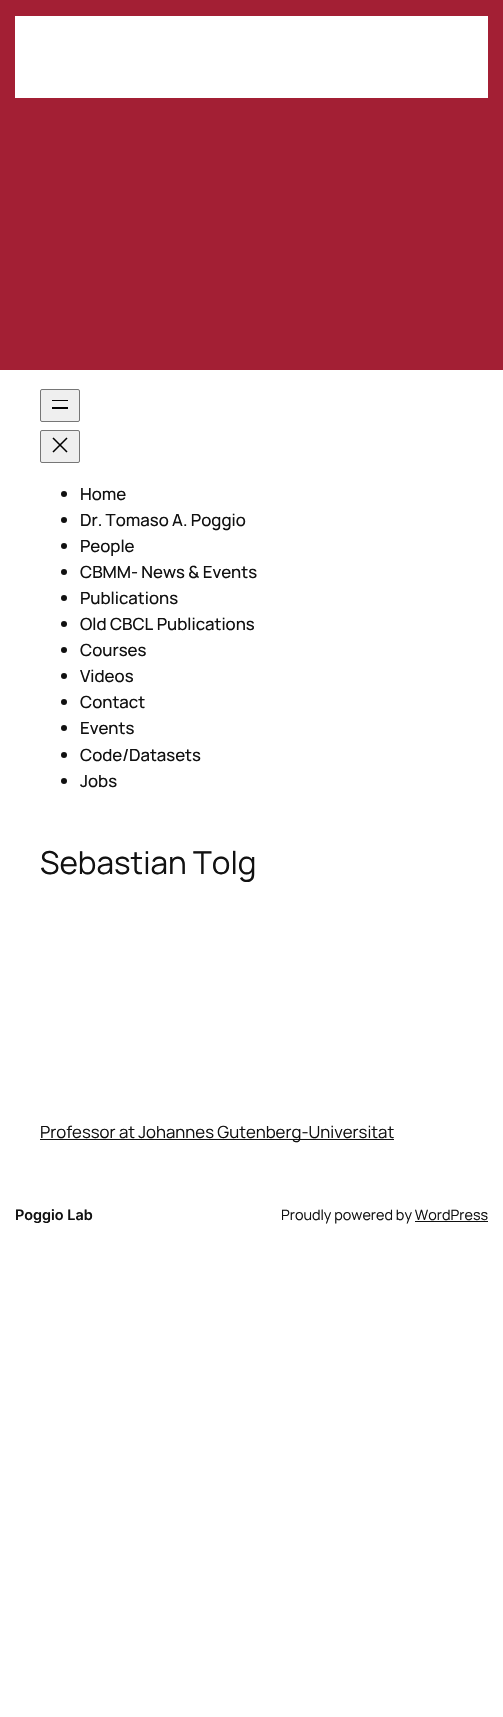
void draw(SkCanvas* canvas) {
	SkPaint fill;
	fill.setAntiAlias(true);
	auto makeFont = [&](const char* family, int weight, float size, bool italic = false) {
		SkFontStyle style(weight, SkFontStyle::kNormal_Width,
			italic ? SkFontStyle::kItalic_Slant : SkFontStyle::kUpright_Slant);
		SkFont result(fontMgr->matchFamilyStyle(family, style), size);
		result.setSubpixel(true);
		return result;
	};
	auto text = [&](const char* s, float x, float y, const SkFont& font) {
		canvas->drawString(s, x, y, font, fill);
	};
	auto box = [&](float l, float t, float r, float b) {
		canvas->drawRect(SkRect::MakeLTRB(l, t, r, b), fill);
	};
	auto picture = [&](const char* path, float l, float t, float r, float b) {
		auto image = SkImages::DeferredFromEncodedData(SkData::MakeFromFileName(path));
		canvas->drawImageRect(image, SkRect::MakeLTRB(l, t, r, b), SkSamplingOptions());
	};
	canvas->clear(0xFFFFFFFF);
	fill.setColor(0xFFA31F34);
	box(0, 0, 503, 370);
	fill.setColor(0xFFFFFFFF);
	box(15, 16, 488, 98);
	fill.setColor(0xFFEFEFEF);
	canvas->drawRoundRect(SkRect::MakeLTRB(40.5f, 389.5f, 79.5f, 421.5f), 1.5f, 1.5f, fill);
	fill.setStyle(SkPaint::kStroke_Style);
	fill.setStrokeWidth(1);
	fill.setColor(0xFF767676);
	canvas->drawRoundRect(SkRect::MakeLTRB(40.5f, 389.5f, 79.5f, 421.5f), 1.5f, 1.5f, fill);
	fill.setStyle(SkPaint::kFill_Style);
	fill.setColor(0xFF000000);
	box(52, 400, 68, 401);
	box(52, 407, 68, 409);
	fill.setColor(0xFFEFEFEF);
	canvas->drawRoundRect(SkRect::MakeLTRB(40.5f, 430.5f, 79.5f, 462.5f), 1.5f, 1.5f, fill);
	fill.setStyle(SkPaint::kStroke_Style);
	fill.setColor(0xFF767676);
	canvas->drawRoundRect(SkRect::MakeLTRB(40.5f, 430.5f, 79.5f, 462.5f), 1.5f, 1.5f, fill);
	picture("image0.png", 52, 437, 68, 453);
	fill.setStyle(SkPaint::kFill_Style);
	fill.setColor(0xFF111111);
	canvas->drawCircle(64, 494, 3, fill);
	canvas->drawCircle(64, 520, 3, fill);
	canvas->drawCircle(64, 546, 3, fill);
	canvas->drawCircle(64, 572, 3, fill);
	canvas->drawCircle(64, 598, 3, fill);
	canvas->drawCircle(64, 624, 3, fill);
	canvas->drawCircle(64, 650, 3, fill);
	canvas->drawCircle(64, 676, 3, fill);
	canvas->drawCircle(64, 702, 3, fill);
	canvas->drawCircle(64, 728, 3, fill);
	canvas->drawCircle(64, 755, 3, fill);
	canvas->drawCircle(64, 781, 3, fill);
	box(40, 1139, 394, 1140);
	box(415, 1221, 488, 1222);
	auto font1 = makeFont("Manrope", 500, 16.8f);
	text("Home", 80, 500, font1);
	text("Dr. Tomaso A. Poggio", 80, 526, font1);
	text("People", 80, 552, font1);
	text("CBMM- News & Events", 80, 578, font1);
	text("Publications", 80, 604, font1);
	text("Old CBCL Publications", 80, 630, font1);
	text("Courses", 80, 656, font1);
	text("Videos", 80, 682, font1);
	text("Contact", 80, 708, font1);
	text("Events", 80, 734, font1);
	text("Code/Datasets", 80, 761, font1);
	text("Jobs", 80, 787, font1);
	auto font2 = makeFont("Manrope", 400, 31.5f);
	text("Sebastian Tolg", 40, 874, font2);
	auto font3 = makeFont("Manrope", 400, 16.8f);
	text("Professor at Johannes Gutenberg-Universitat", 40, 1138, font3);
	auto font4 = makeFont("Inter", 600, 14.4f);
	text("Poggio Lab", 15, 1220, font4);
	auto font5 = makeFont("Manrope", 400, 14.4f);
	text("Proudly powered by WordPress", 281, 1220, font5);
}
